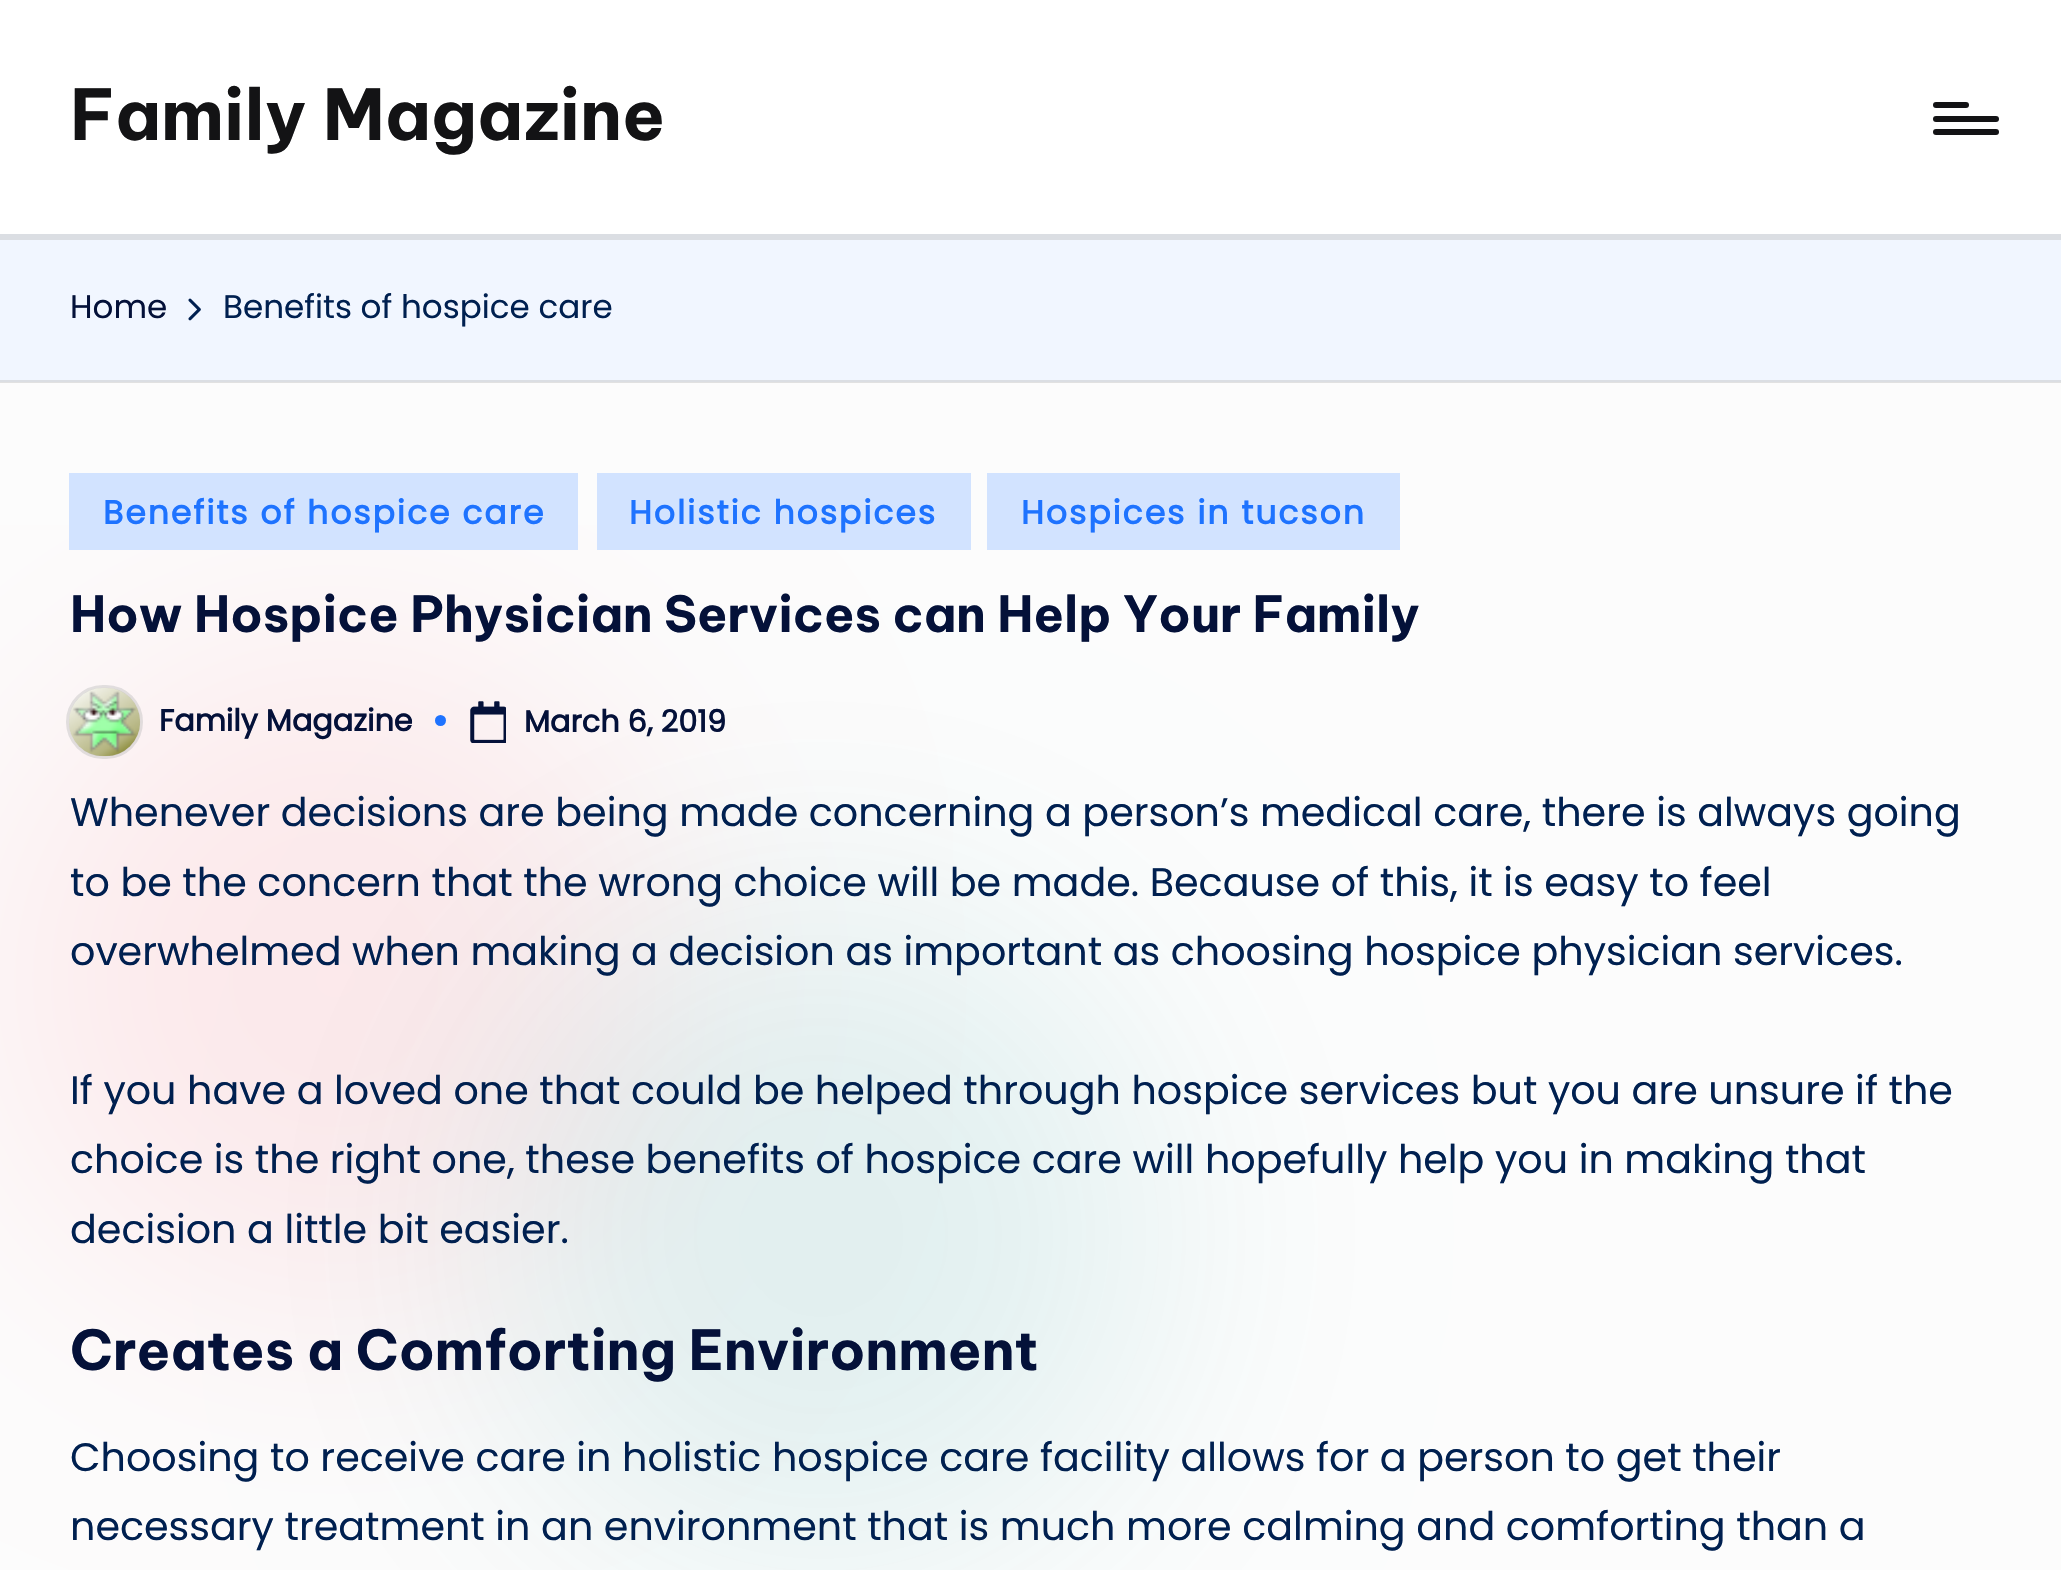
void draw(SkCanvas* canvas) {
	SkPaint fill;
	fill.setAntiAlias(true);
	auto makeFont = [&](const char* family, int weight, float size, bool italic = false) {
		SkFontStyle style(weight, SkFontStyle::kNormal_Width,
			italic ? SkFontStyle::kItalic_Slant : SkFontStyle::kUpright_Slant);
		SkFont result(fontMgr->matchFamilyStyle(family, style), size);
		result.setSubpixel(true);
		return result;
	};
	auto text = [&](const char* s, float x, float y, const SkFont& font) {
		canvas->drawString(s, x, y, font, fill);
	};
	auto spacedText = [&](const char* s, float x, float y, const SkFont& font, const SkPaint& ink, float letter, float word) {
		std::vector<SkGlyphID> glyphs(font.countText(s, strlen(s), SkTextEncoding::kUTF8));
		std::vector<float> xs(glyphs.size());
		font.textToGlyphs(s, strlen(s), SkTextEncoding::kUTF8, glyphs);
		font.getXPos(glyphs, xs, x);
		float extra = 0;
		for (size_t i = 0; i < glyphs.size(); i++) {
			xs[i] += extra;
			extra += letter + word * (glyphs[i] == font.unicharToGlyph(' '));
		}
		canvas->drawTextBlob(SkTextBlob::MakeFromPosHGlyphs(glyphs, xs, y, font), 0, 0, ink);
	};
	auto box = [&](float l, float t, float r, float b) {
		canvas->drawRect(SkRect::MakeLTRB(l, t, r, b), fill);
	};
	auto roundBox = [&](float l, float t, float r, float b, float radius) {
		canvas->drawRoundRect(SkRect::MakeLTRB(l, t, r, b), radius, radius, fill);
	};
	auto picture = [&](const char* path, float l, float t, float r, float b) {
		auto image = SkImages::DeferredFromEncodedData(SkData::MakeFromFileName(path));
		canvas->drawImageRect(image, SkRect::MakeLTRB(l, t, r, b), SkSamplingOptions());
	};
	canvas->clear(0xFFFCFCFC);
	fill.setColor(0xFFE1E1E1);
	box(0, 382, 2061, 383);
	canvas->save();
	canvas->clipRect(SkRect::MakeLTRB(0, 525, 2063, 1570));
	fill.setColor(0xFFFDE9EB);
	fill.setMaskFilter(SkMaskFilter::MakeBlur(kNormal_SkBlurStyle, 176));
	canvas->drawRoundRect(SkRect::MakeLTRB(0, 644, 671, 1315), 335.5f, 335.5f, fill);
	fill.setMaskFilter(nullptr);
	canvas->restore();
	fill.setColor(0xFFFFFFFF);
	box(0, 0, 2061, 234);
	fill.setColor(0xFF131315);
	roundBox(1933, 116, 1999, 122, 3);
	roundBox(1933, 102, 1969, 108, 3);
	roundBox(1933, 129, 1999, 135, 3);
	fill.setColor(0x1A04868B);
	fill.setMaskFilter(SkMaskFilter::MakeBlur(kNormal_SkBlurStyle, 176));
	canvas->drawRoundRect(SkRect::MakeLTRB(484, 899, 1158, 1570), 335.5f, 335.5f, fill);
	fill.setMaskFilter(nullptr);
	fill.setColor(0xFFF1F6FF);
	box(0, 240, 2061, 380);
	fill.setColor(0xFFDBDEE3);
	box(0, 380, 2061, 382);
	box(0, 234, 2061, 240);
	picture("image0.png", 188, 298, 201, 321);
	fill.setColor(0xFFD2E3FF);
	box(69, 473, 578, 550);
	box(597, 473, 971, 550);
	box(987, 473, 1400, 550);
	picture("image1.png", 69, 687, 141, 757);
	fill.setStyle(SkPaint::kStroke_Style);
	fill.setStrokeWidth(3);
	fill.setColor(0x66B9B9B9);
	canvas->drawRoundRect(SkRect::MakeLTRB(67.5f, 686.5f, 141.5f, 757.5f), 35.5f, 35.5f, fill);
	fill.setStyle(SkPaint::kFill_Style);
	fill.setColor(0xFF1E73FF);
	canvas->drawCircle(440.5f, 720.5f, 5.5f, fill);
	picture("image2.png", 470, 701, 506, 743);
	auto font1 = makeFont("Be Vietnam Pro", 700, 70);
	fill.setColor(0xFF131315);
	text("Family Magazine", 70, 140, font1);
	auto font2 = makeFont("Poppins", 400, 32.6f);
	fill.setColor(0xFF041139);
	text("Home", 70, 318, font2);
	fill.setColor(0xFF002050);
	text("Benefits of hospice care", 223, 318, font2);
	auto font3 = makeFont("Poppins", 700, 33);
	fill.setColor(0xFF1E73FF);
	spacedText("Benefits of hospice care", 103, 524, font3, fill, 2, 0);
	spacedText("Holistic hospices", 629, 524, font3, fill, 2, 0);
	spacedText("Hospices in tucson", 1021, 524, font3, fill, 2, 0);
	auto font4 = makeFont("Be Vietnam Pro", 700, 49.5f);
	fill.setColor(0xFF041139);
	text("How Hospice Physician Services can Help Your Family", 70, 632, font4);
	auto font5 = makeFont("Poppins", 700, 30.25f);
	text("Family Magazine", 159, 731, font5);
	text("March 6, 2019", 524, 732, font5);
	auto font6 = makeFont("Poppins", 400, 39.65f);
	fill.setColor(0xFF002050);
	text("Whenever decisions are being made concerning a person’s medical care, there is always going", 70, 826, font6);
	text("to be the concern that the wrong choice will be made. Because of this, it is easy to feel", 70, 896, font6);
	text("overwhelmed when making a decision as important as choosing hospice physician services.", 70, 965, font6);
	text("If you have a loved one that could be helped through hospice services but you are unsure if the", 70, 1104, font6);
	text("choice is the right one, these benefits of hospice care will hopefully help you in making that", 70, 1173, font6);
	text("decision a little bit easier.", 70, 1243, font6);
	auto font7 = makeFont("Be Vietnam Pro", 700, 55);
	fill.setColor(0xFF041139);
	text("Creates a Comforting Environment", 70, 1370, font7);
	fill.setColor(0xFF002050);
	text("Choosing to receive care in holistic hospice care facility allows for a person to get their", 70, 1471, font6);
	text("necessary treatment in an environment that is much more calming and comforting than a", 70, 1540, font6);
}
